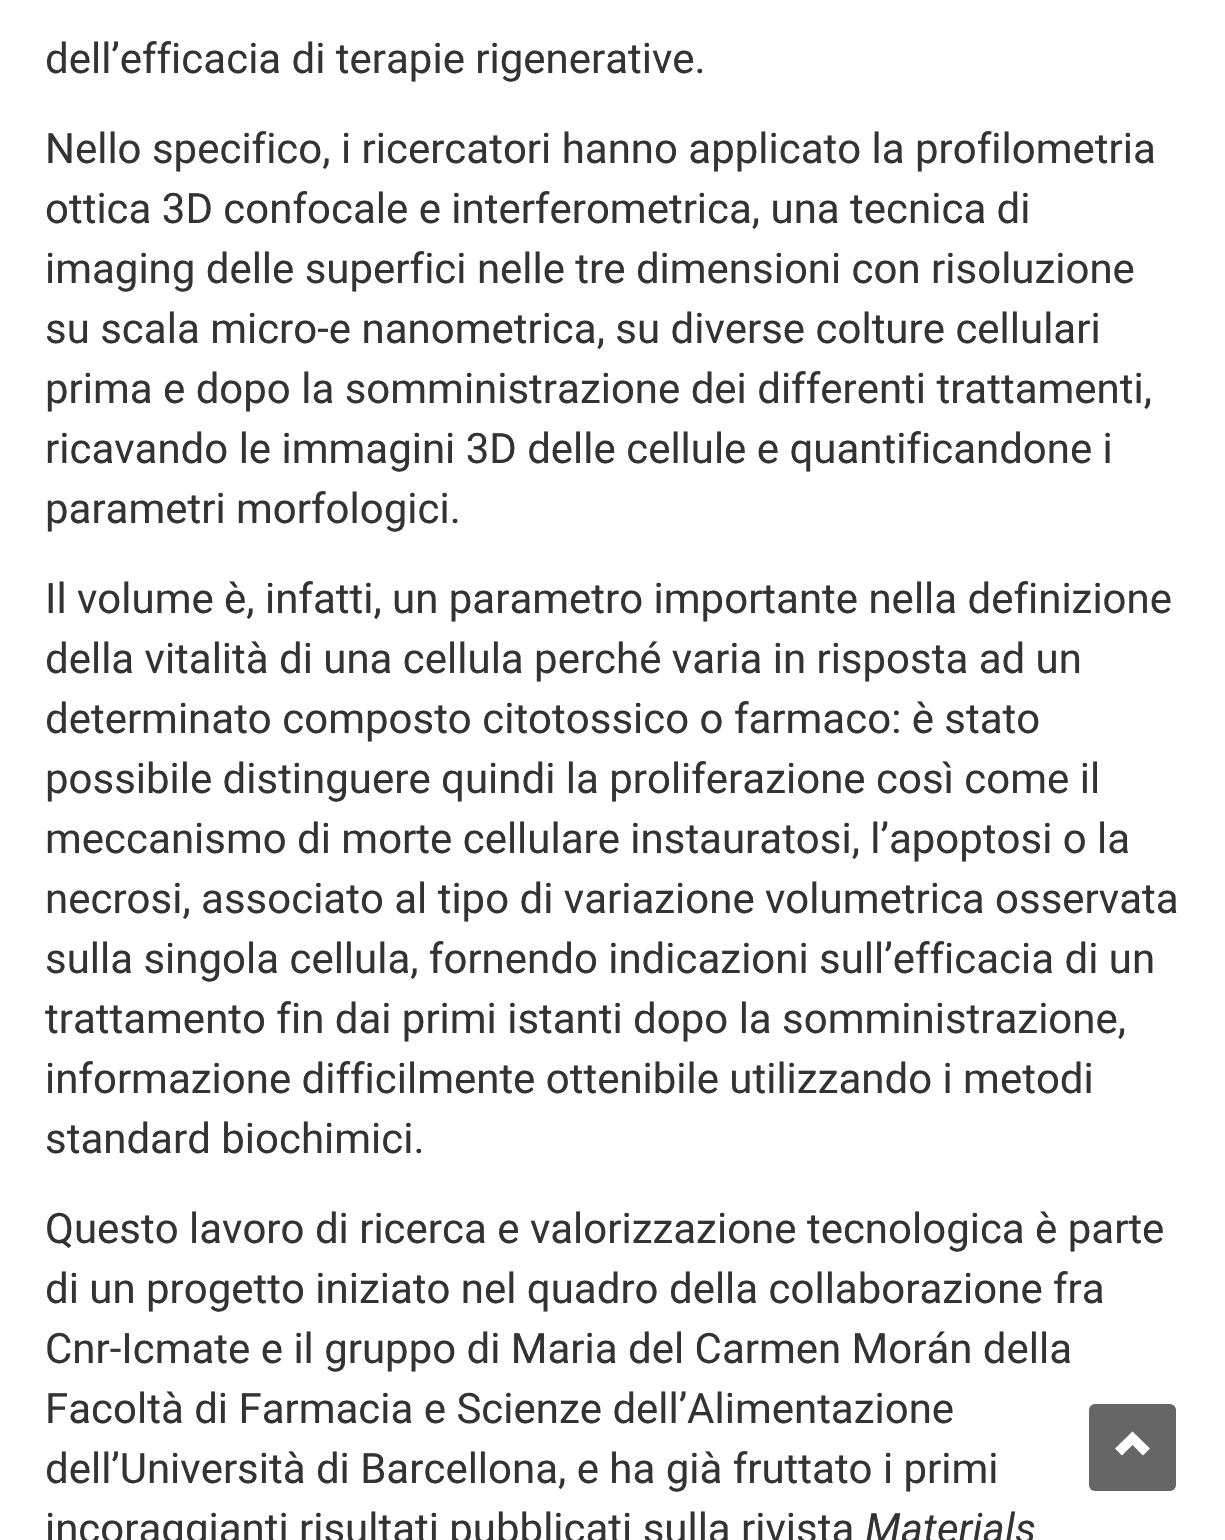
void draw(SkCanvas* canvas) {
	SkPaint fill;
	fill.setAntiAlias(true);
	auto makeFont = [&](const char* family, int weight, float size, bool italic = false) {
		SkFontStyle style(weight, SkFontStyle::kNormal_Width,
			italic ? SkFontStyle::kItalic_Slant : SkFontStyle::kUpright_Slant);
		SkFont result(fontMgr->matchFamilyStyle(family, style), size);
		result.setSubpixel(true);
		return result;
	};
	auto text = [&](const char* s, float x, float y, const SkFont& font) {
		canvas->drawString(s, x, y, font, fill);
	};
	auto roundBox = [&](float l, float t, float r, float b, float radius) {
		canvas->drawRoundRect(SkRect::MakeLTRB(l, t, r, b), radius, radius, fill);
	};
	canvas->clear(0xFFFFFFFF);
	fill.setColor(0xFF666666);
	roundBox(1089, 1404, 1176, 1491, 6);
	fill.setColor(0xFFFFFFFF);
	canvas->drawPath(SkPathBuilder().moveTo(1115, 1448.5f).lineTo(1122, 1455.5f).lineTo(1132.5f, 1445).lineTo(1143, 1455.5f).lineTo(1150, 1448.5f).lineTo(1132.5f, 1431.5f).close().detach(), fill);
	auto font1 = makeFont("Roboto", 400, 42);
	fill.setColor(0xFF333333);
	text("dell’efficacia di terapie rigenerative.", 45, 73, font1);
	text("Nello specifico, i ricercatori hanno applicato la profilometria", 45, 163, font1);
	text("ottica 3D confocale e interferometrica, una tecnica di", 45, 223, font1);
	text("imaging delle superfici nelle tre dimensioni con risoluzione", 45, 283, font1);
	text("su scala micro-e nanometrica, su diverse colture cellulari", 45, 343, font1);
	text("prima e dopo la somministrazione dei differenti trattamenti,", 45, 403, font1);
	text("ricavando le immagini 3D delle cellule e quantificandone i", 45, 463, font1);
	text("parametri morfologici.", 45, 523, font1);
	text("Il volume è, infatti, un parametro importante nella definizione", 45, 613, font1);
	text("della vitalità di una cellula perché varia in risposta ad un", 45, 673, font1);
	text("determinato composto citotossico o farmaco: è stato", 45, 733, font1);
	text("possibile distinguere quindi la proliferazione così come il", 45, 793, font1);
	text("meccanismo di morte cellulare instauratosi, l’apoptosi o la", 45, 853, font1);
	text("necrosi, associato al tipo di variazione volumetrica osservata", 45, 913, font1);
	text("sulla singola cellula, fornendo indicazioni sull’efficacia di un", 45, 973, font1);
	text("trattamento fin dai primi istanti dopo la somministrazione,", 45, 1033, font1);
	text("informazione difficilmente ottenibile utilizzando i metodi", 45, 1093, font1);
	text("standard biochimici.", 45, 1153, font1);
	text("Questo lavoro di ricerca e valorizzazione tecnologica è parte", 45, 1243, font1);
	text("di un progetto iniziato nel quadro della collaborazione fra", 45, 1303, font1);
	text("Cnr-Icmate e il gruppo di Maria del Carmen Morán della", 45, 1363, font1);
	text("Facoltà di Farmacia e Scienze dell’Alimentazione", 45, 1423, font1);
	text("dell’Università di Barcellona, e ha già fruttato i primi", 45, 1483, font1);
	text("incoraggianti risultati pubblicati sulla rivista", 45, 1543, font1);
	auto font2 = makeFont("Roboto", 400, 42, true);
	text("Materials", 865, 1543, font2);
}
